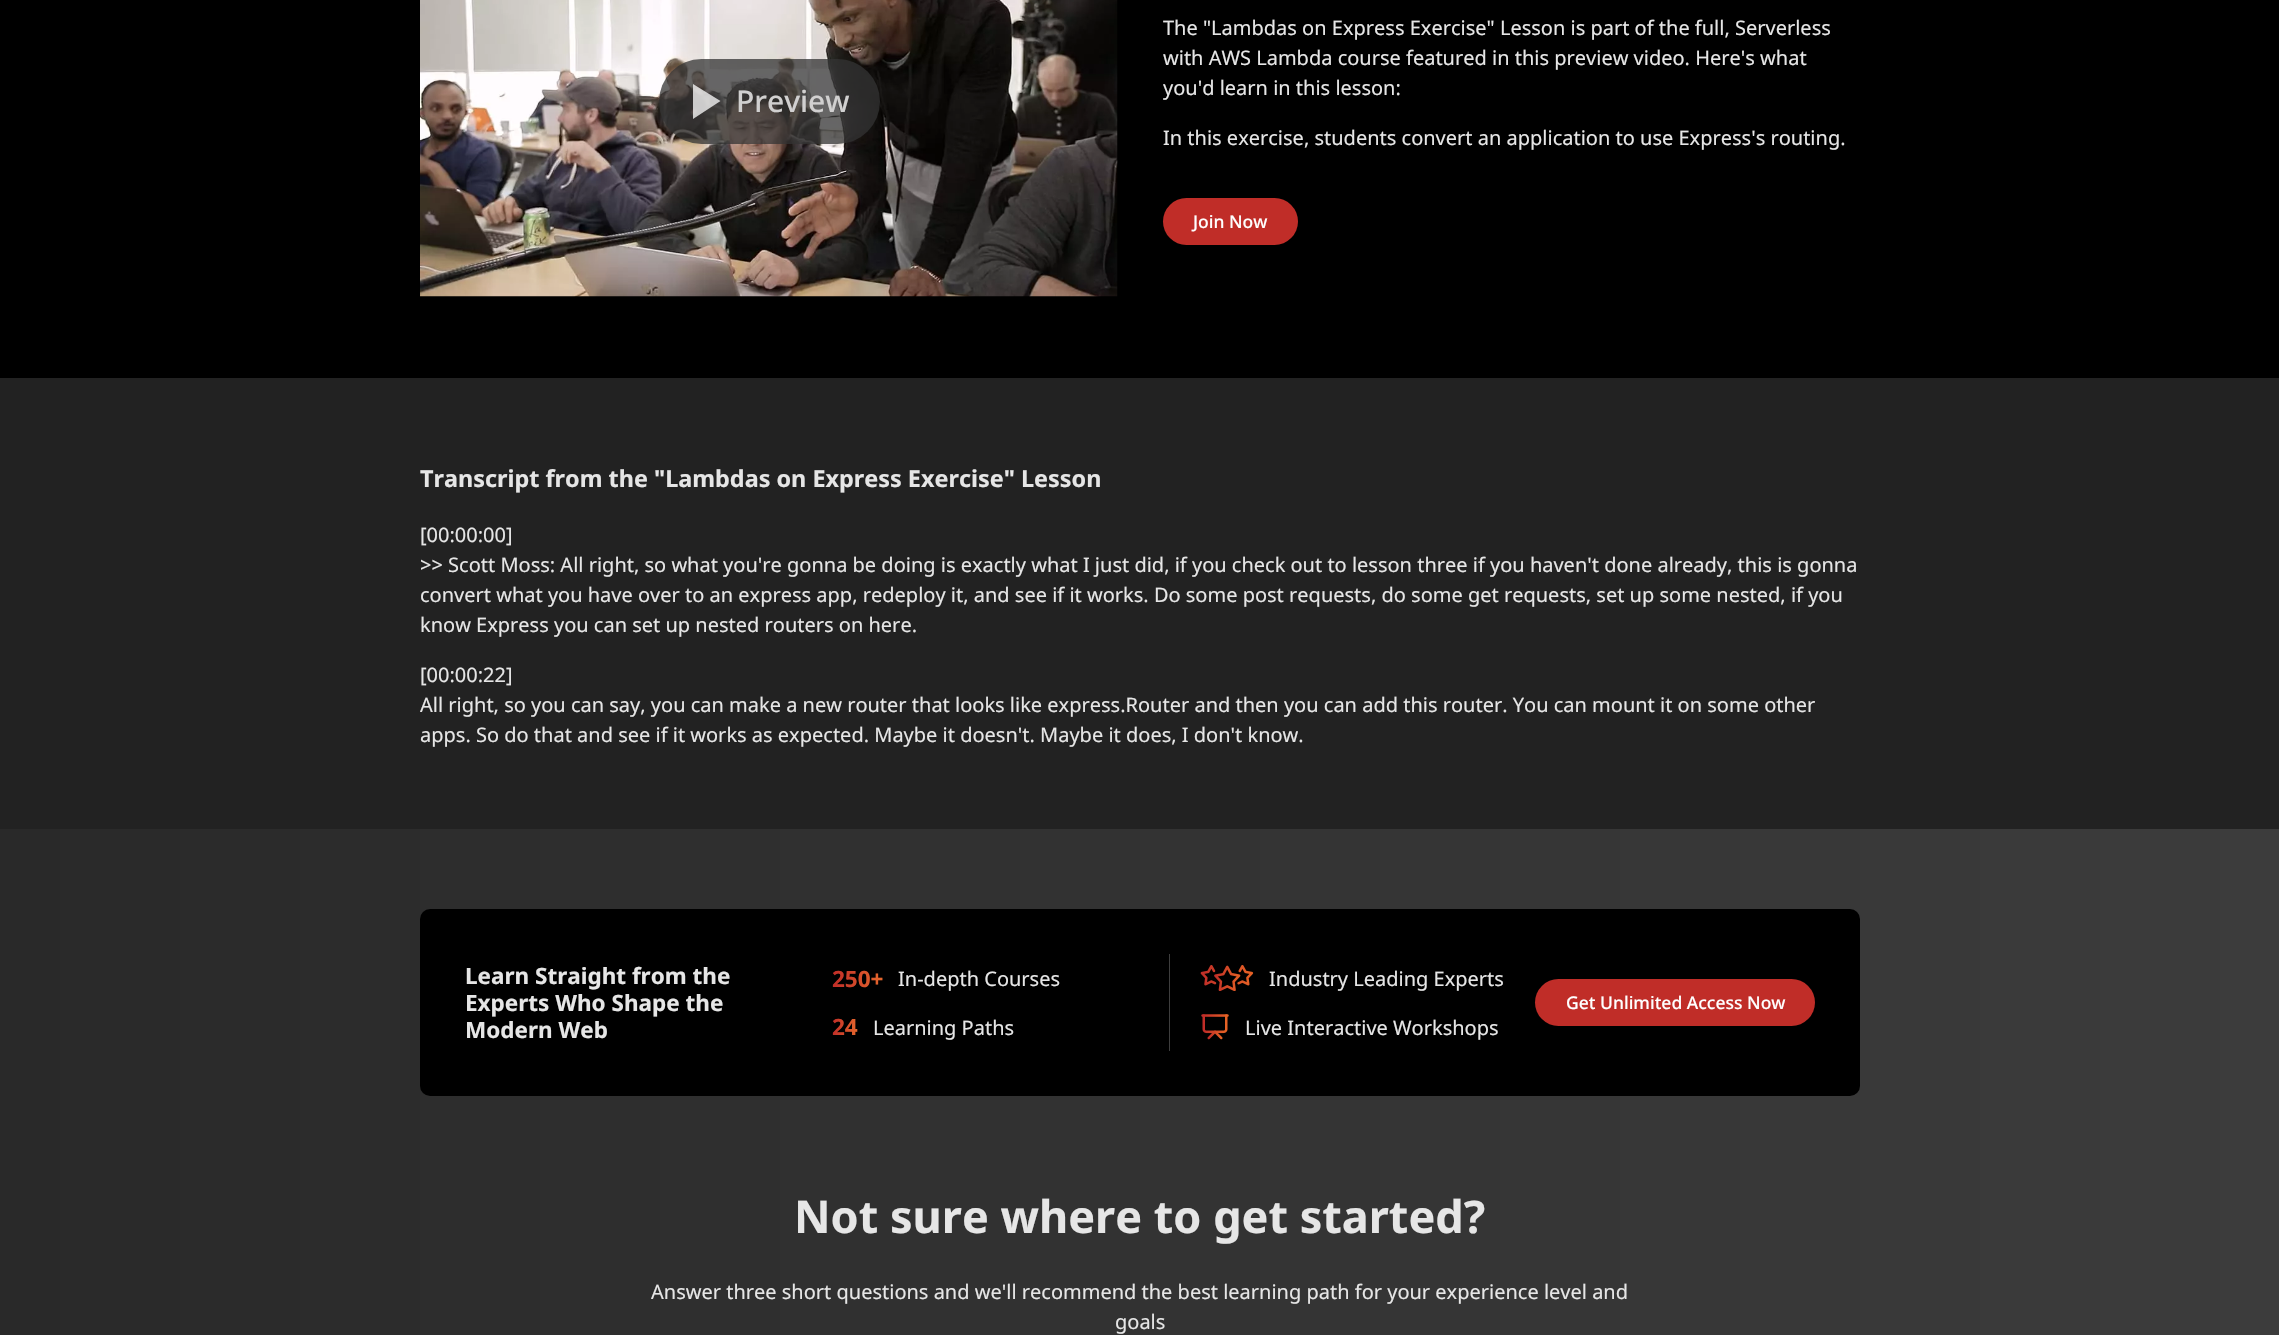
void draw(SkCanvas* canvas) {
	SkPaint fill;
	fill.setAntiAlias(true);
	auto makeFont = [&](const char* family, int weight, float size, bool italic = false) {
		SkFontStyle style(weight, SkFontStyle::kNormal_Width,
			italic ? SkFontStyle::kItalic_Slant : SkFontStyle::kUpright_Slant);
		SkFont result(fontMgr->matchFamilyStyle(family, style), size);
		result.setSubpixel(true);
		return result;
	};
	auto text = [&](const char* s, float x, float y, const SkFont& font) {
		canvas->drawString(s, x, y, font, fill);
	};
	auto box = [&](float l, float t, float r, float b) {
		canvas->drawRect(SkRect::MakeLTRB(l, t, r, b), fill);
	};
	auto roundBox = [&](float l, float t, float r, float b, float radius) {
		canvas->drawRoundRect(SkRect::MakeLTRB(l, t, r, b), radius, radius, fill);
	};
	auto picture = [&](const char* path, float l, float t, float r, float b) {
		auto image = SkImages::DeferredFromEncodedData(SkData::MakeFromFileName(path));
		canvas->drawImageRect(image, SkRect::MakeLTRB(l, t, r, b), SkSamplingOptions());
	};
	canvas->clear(0xFF222222);
	fill.setColor(0xFF000000);
	box(0, 0, 2279, 378);
	picture("image0.png", 420, 0, 1118, 297);
	fill.setColor(0xBF333333);
	roundBox(659, 59, 880, 144, 42.5f);
	fill.setColor(0xBFFFFFFF);
	canvas->drawPath(SkPathBuilder().moveTo(693, 84).lineTo(693, 119).lineTo(720.5f, 101).close().detach(), fill);
	fill.setColor(0xFFC02D28);
	roundBox(1163, 198, 1298, 245, 23.5f);
	{
		const SkColor colors[] = {0xFF292929, 0xFF3C3C3C};
		const float stops[] = {0, 1};
		const SkPoint ends[] = {{0, 1191}, {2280, 1191}};
		fill.setShader(SkGradientShader::MakeLinear(ends, colors, stops, 2, SkTileMode::kClamp));
		fill.setAlpha(255);
	}
	box(0, 829, 2279, 1335);
	fill.setShader(nullptr);
	fill.setColor(0xFF000000);
	roundBox(420, 909, 1860, 1096, 10);
	fill.setColor(0xFF3E3E3E);
	box(1169, 954, 1170, 1051);
	picture("image1.png", 1200, 965, 1254, 991);
	picture("image2.png", 1201, 1014, 1229, 1040);
	fill.setColor(0xFFC02D28);
	roundBox(1535, 979, 1815, 1026, 23.5f);
	auto font1 = makeFont("Noto Sans", 500, 30);
	fill.setColor(0xFFD1D0D0);
	text("Preview", 736, 112, font1);
	auto font2 = makeFont("Noto Sans", 400, 20);
	fill.setColor(0xFFE6E6E6);
	text("The \"Lambdas on Express Exercise\" Lesson is part of the full, Serverless", 1163, 35, font2);
	text("with AWS Lambda course featured in this preview video. Here's what", 1163, 65, font2);
	text("you'd learn in this lesson:", 1163, 95, font2);
	text("In this exercise, students convert an application to use Express's routing.", 1163, 145, font2);
	auto font3 = makeFont("Noto Sans", 500, 17.5f);
	fill.setColor(0xFFFFFFFF);
	text("Join Now", 1193, 228, font3);
	auto font4 = makeFont("Noto Sans", 700, 23.4f);
	fill.setColor(0xFFE6E6E6);
	text("Transcript from the \"Lambdas on Express Exercise\" Lesson", 420, 487, font4);
	text("[00:00:00]", 420, 542, font2);
	text(">> Scott Moss: All right, so what you're gonna be doing is exactly what I just did, if you check out to lesson three if you haven't done already, this is gonna", 420, 572, font2);
	text("convert what you have over to an express app, redeploy it, and see if it works. Do some post requests, do some get requests, set up some nested, if you", 420, 602, font2);
	text("know Express you can set up nested routers on here.", 420, 632, font2);
	text("[00:00:22]", 420, 682, font2);
	text("All right, so you can say, you can make a new router that looks like express.Router and then you can add this router. You can mount it on some other", 420, 712, font2);
	text("apps. So do that and see if it works as expected. Maybe it doesn't. Maybe it does, I don't know.", 420, 742, font2);
	auto font5 = makeFont("Noto Sans", 700, 22.5f);
	text("Learn Straight from the", 465, 984, font5);
	text("Experts Who Shape the", 465, 1011, font5);
	text("Modern Web", 465, 1038, font5);
	{
		const SkColor colors[] = {0xFFC02D28, 0xFFE6682D};
		const float stops[] = {0, 1};
		const SkPoint ends[] = {{832, 979}, {883, 979}};
		fill.setShader(SkGradientShader::MakeLinear(ends, colors, stops, 2, SkTileMode::kClamp));
		fill.setAlpha(255);
	}
	text("250+", 832, 987, font5);
	fill.setShader(nullptr);
	fill.setColor(0xFFE6E6E6);
	text("In-depth Courses", 898, 986, font2);
	text("Industry Leading Experts", 1269, 986, font2);
	{
		const SkColor colors[] = {0xFFC02D28, 0xFFE6682D};
		const float stops[] = {0, 1};
		const SkPoint ends[] = {{832, 1027}, {858, 1027}};
		fill.setShader(SkGradientShader::MakeLinear(ends, colors, stops, 2, SkTileMode::kClamp));
		fill.setAlpha(255);
	}
	text("24", 832, 1035, font5);
	fill.setShader(nullptr);
	fill.setColor(0xFFE6E6E6);
	text("Learning Paths", 873, 1035, font2);
	text("Live Interactive Workshops", 1245, 1035, font2);
	fill.setColor(0xFFFFFFFF);
	text("Get Unlimited Access Now", 1566, 1009, font3);
	auto font6 = makeFont("Noto Sans", 700, 45);
	fill.setColor(0xFFE6E6E6);
	text("Not sure where to get started?", 794, 1233, font6);
	text("Answer three short questions and we'll recommend the best learning path for your experience level and", 651, 1299, font2);
	text("goals", 1115, 1329, font2);
}
